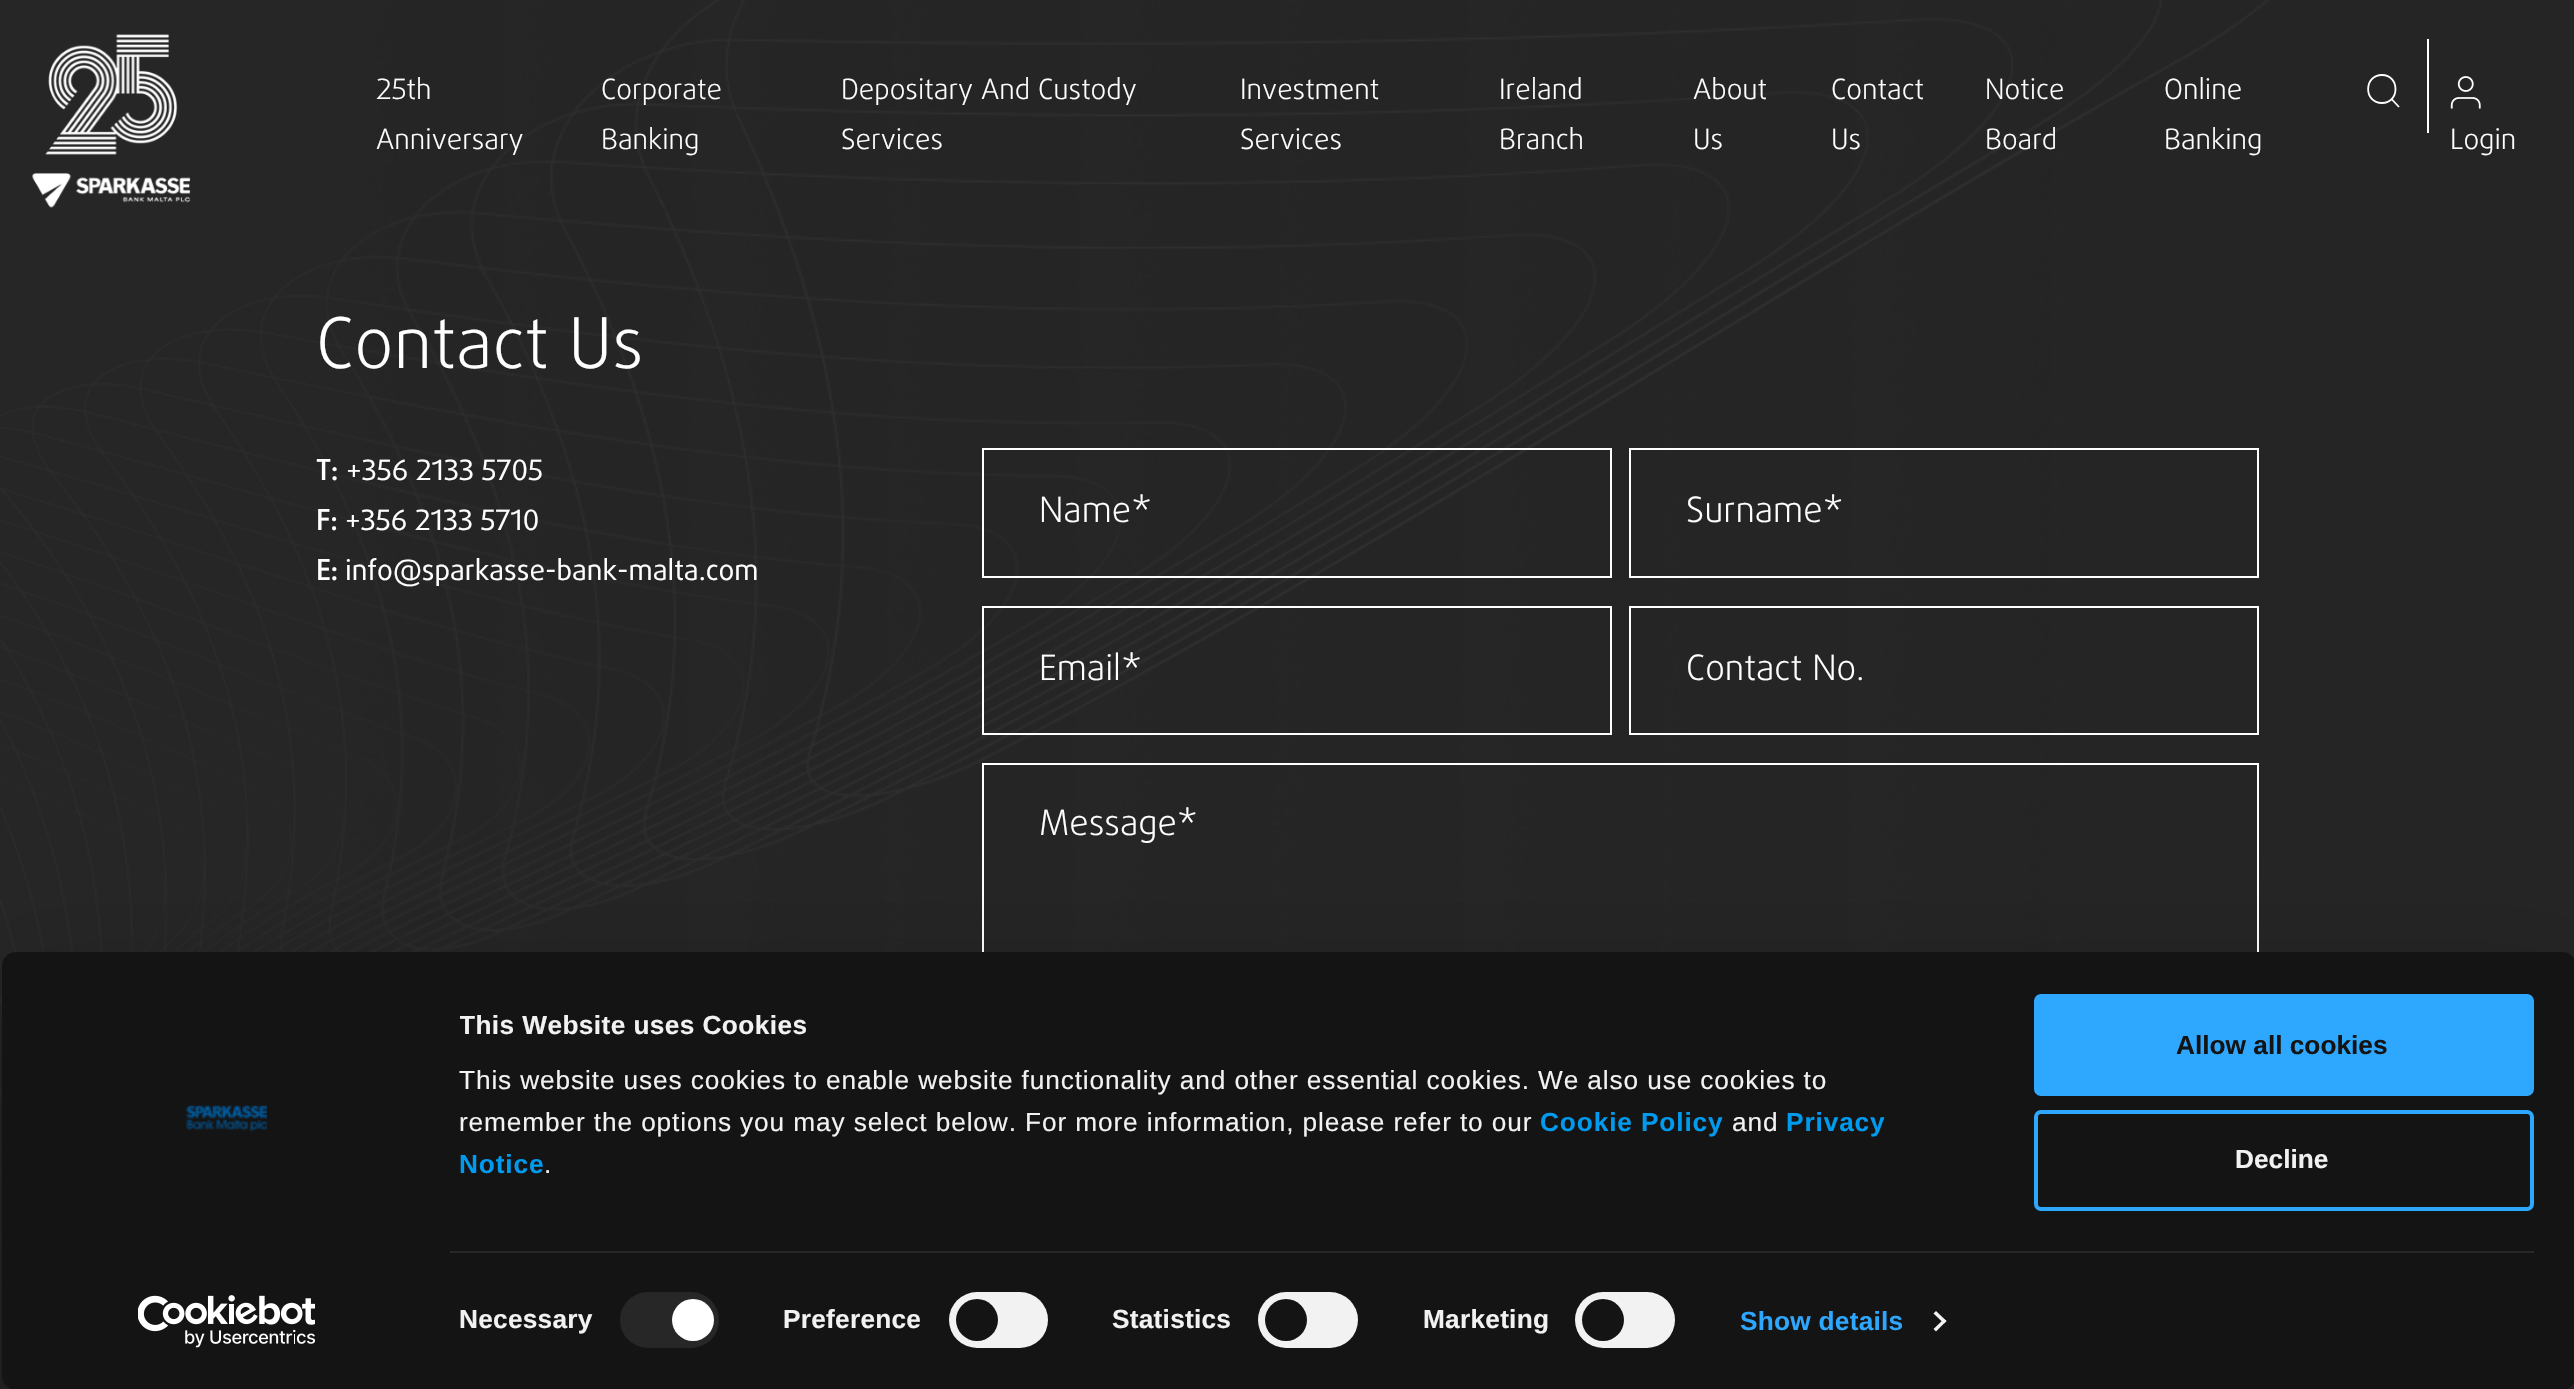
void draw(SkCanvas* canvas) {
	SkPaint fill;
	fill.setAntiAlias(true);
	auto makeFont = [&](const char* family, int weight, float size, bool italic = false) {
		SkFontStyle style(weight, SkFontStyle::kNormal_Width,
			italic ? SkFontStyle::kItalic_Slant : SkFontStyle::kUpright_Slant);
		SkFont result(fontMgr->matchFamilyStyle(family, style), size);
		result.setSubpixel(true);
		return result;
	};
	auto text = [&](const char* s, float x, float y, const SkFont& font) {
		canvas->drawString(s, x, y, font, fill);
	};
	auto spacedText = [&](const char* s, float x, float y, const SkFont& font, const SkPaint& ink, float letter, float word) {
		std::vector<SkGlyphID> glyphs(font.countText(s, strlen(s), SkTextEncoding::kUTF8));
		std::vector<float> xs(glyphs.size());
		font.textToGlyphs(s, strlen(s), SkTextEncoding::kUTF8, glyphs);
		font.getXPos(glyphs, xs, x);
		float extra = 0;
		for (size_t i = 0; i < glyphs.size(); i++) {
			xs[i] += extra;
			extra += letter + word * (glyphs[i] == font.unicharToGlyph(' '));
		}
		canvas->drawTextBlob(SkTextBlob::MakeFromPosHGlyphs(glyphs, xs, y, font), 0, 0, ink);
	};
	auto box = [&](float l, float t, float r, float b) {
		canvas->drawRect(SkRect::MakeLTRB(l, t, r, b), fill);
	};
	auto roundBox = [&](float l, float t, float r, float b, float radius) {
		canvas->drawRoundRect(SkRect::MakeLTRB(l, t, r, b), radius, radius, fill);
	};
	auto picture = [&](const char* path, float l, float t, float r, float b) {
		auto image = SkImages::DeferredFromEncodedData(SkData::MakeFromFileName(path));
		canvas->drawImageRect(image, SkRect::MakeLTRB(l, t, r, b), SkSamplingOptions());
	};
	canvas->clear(0xFF252525);
	picture("image0.png", 0, 0, 2269, 1339);
	{
		const SkColor colors[] = {0x00252525, 0xFF252525, 0xFF252525};
		const float stops[] = {0, 0.75f, 1};
		const SkPoint ends[] = {{1287, 1025}, {1287, 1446}};
		fill.setShader(SkGradientShader::MakeLinear(ends, colors, stops, 3, SkTileMode::kClamp));
		fill.setAlpha(255);
	}
	box(0, 1130, 71, 1339);
	picture("image1.png", 32, 34, 191, 208);
	fill.setStyle(SkPaint::kStroke_Style);
	fill.setStrokeWidth(1.8f);
	fill.setStrokeCap(SkPaint::kRound_Cap);
	fill.setStrokeJoin(SkPaint::kRound_Join);
	fill.setShader(nullptr);
	fill.setColor(0xFFFFFFFF);
	canvas->drawPath(SkPathBuilder().moveTo(2382, 103).cubicTo(2400, 103, 2400, 75, 2382, 75).cubicTo(2363.5f, 75, 2363.5f, 103, 2382, 103).close().detach(), fill);
	fill.setStyle(SkPaint::kFill_Style);
	box(2427, 39, 2429, 133);
	fill.setStyle(SkPaint::kStroke_Style);
	fill.setStrokeCap(SkPaint::kButt_Cap);
	canvas->drawPath(SkPathBuilder().moveTo(2399, 107).lineTo(2391.5f, 99).detach(), fill);
	picture("image2.png", 2450, 76, 2481, 109);
	fill.setStrokeWidth(2);
	fill.setStrokeJoin(SkPaint::kMiter_Join);
	canvas->drawRect(SkRect::MakeLTRB(983, 449, 1611, 577), fill);
	canvas->drawRect(SkRect::MakeLTRB(1630, 449, 2258, 577), fill);
	canvas->drawRect(SkRect::MakeLTRB(983, 607, 1611, 734), fill);
	canvas->drawRect(SkRect::MakeLTRB(1630, 607, 2258, 734), fill);
	canvas->drawRect(SkRect::MakeLTRB(983, 764, 2258, 1256), fill);
	canvas->save();
	canvas->clipPath(SkPathBuilder(SkPathFillType::kEvenOdd).moveTo(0, 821).lineTo(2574, 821).lineTo(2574, 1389).lineTo(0, 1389).close().moveTo(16, 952).lineTo(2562, 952).cubicTo(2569.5f, 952, 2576, 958.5f, 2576, 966).lineTo(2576, 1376).cubicTo(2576, 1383.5f, 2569.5f, 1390, 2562, 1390).lineTo(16, 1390).cubicTo(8.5f, 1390, 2, 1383.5f, 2, 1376).lineTo(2, 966).cubicTo(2, 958.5f, 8.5f, 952, 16, 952).close().detach(), true);
	fill.setStyle(SkPaint::kFill_Style);
	fill.setColor(0x4D000000);
	fill.setMaskFilter(SkMaskFilter::MakeBlur(kNormal_SkBlurStyle, 61));
	canvas->drawRoundRect(SkRect::MakeLTRB(2, 1005, 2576, 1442), 14, 14, fill);
	fill.setMaskFilter(nullptr);
	canvas->restore();
	fill.setColor(0xFF141414);
	roundBox(2, 952, 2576, 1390, 14);
	picture("image3.png", 186, 1104, 267, 1132);
	picture("image4.png", 138, 1295, 315, 1348);
	fill.setColor(0xFF272727);
	box(450, 1251, 2534, 1253);
	roundBox(620, 1292, 719, 1348, 28);
	fill.setColor(0xFFFFFFFF);
	canvas->drawCircle(693, 1320, 21, fill);
	fill.setColor(0xFFF2F2F2);
	roundBox(949, 1292, 1048, 1348, 28);
	fill.setColor(0xFF141414);
	canvas->drawCircle(977, 1320, 21, fill);
	fill.setColor(0xFFF2F2F2);
	roundBox(1258, 1292, 1358, 1348, 28);
	fill.setColor(0xFF141414);
	canvas->drawCircle(1286, 1320, 21, fill);
	fill.setColor(0xFFF2F2F2);
	roundBox(1575, 1292, 1675, 1348, 28);
	fill.setColor(0xFF141414);
	canvas->drawCircle(1603, 1320, 21, fill);
	fill.setColor(0xFFF2F2F2);
	canvas->drawPath(SkPathBuilder().moveTo(1936, 1311).lineTo(1946.5f, 1321).lineTo(1944, 1323.5f).lineTo(1933.5f, 1313.5f).close().detach(), fill);
	canvas->drawPath(SkPathBuilder().moveTo(1944, 1319).lineTo(1946.5f, 1321).lineTo(1936, 1331.5f).lineTo(1933.5f, 1329).close().detach(), fill);
	fill.setColor(0xFF2EA7FF);
	canvas->drawRoundRect(SkRect::MakeLTRB(2036, 996, 2532, 1094), 5, 5, fill);
	fill.setStyle(SkPaint::kStroke_Style);
	fill.setStrokeWidth(4);
	canvas->drawRoundRect(SkRect::MakeLTRB(2036, 996, 2532, 1094), 5, 5, fill);
	canvas->drawRoundRect(SkRect::MakeLTRB(2036, 1112, 2532, 1209), 5, 5, fill);
	auto font1 = makeFont("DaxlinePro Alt", 300, 28);
	fill.setStyle(SkPaint::kFill_Style);
	fill.setColor(0xFFFFFFFF);
	text("25th", 376, 99, font1);
	auto font2 = makeFont("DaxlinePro", 300, 28);
	text("Anniversary", 376, 149, font2);
	text("Corporate", 601, 99, font2);
	text("Banking", 601, 149, font2);
	text("Depositary And Custody", 841, 99, font2);
	text("Services", 841, 149, font2);
	text("Investment", 1240, 99, font2);
	text("Services", 1240, 149, font2);
	text("Ireland", 1499, 99, font2);
	text("Branch", 1499, 149, font2);
	text("About", 1693, 99, font2);
	text("Us", 1693, 149, font2);
	text("Contact", 1831, 99, font2);
	text("Us", 1831, 149, font2);
	text("Notice", 1985, 99, font2);
	text("Board", 1985, 149, font2);
	text("Online", 2164, 99, font2);
	text("Banking", 2164, 149, font2);
	text("Login", 2450, 149, font2);
	auto font3 = makeFont("DaxlinePro", 300, 70);
	text("Contact Us", 316, 368, font3);
	auto font4 = makeFont("DaxlinePro", 700, 28);
	text("T:", 316, 480, font4);
	auto font5 = makeFont("DaxlinePro Alt", 400, 28);
	text("+356 2133 5705", 346, 480, font5);
	text("F:", 316, 530, font4);
	text("+356 2133 5710", 345, 530, font5);
	text("E:", 316, 580, font4);
	auto font6 = makeFont("DaxlinePro", 400, 28);
	text("info@sparkasse-bank-malta.com", 345, 580, font6);
	auto font7 = makeFont("DaxlinePro", 300, 35);
	text("Name*", 1039, 522, font7);
	text("Surname*", 1686, 522, font7);
	text("Email*", 1039, 680, font7);
	text("Contact No.", 1686, 680, font7);
	text("Message*", 1039, 835, font7);
	canvas->save();
	canvas->clipRect(SkRect::MakeLTRB(460, 1005, 1983, 1201));
	auto font8 = makeFont("Liberation Sans", 700, 26.25f);
	fill.setColor(0xFFF2F2F2);
	spacedText("This Website uses Cookies", 459, 1034, font8, fill, 0.4f, 0);
	canvas->restore();
	auto font9 = makeFont("Liberation Sans", 400, 26.25f);
	spacedText("This website uses cookies to enable website functionality and other essential cookies. We also use cookies to", 459, 1089, font9, fill, 0.88f, 0);
	spacedText("remember the options you may select below. For more information, please refer to our", 459, 1131, font9, fill, 0.88f, 0);
	fill.setColor(0xFF009AEE);
	spacedText("Cookie Policy", 1540, 1131, font8, fill, 0.88f, 0);
	fill.setColor(0xFFF2F2F2);
	spacedText("and", 1732, 1131, font9, fill, 0.88f, 0);
	fill.setColor(0xFF009AEE);
	spacedText("Privacy", 1786, 1131, font8, fill, 0.88f, 0);
	spacedText("Notice", 459, 1173, font8, fill, 0.88f, 0);
	fill.setColor(0xFFF2F2F2);
	spacedText(".", 544, 1173, font9, fill, 0.88f, 0);
	spacedText("Necessary", 459, 1328, font8, fill, 0.25f, 0);
	spacedText("Preference", 783, 1328, font8, fill, 0.25f, 0);
	spacedText("Statistics", 1112, 1328, font8, fill, 0.25f, 0);
	spacedText("Marketing", 1423, 1328, font8, fill, 0.25f, 0);
	fill.setColor(0xFF2EA7FF);
	spacedText("Show details", 1740, 1330, font8, fill, 0.25f, 0);
	fill.setColor(0xFF141414);
	text("Allow all cookies", 2176, 1054, font8);
	fill.setColor(0xFFF2F2F2);
	text("Decline", 2235, 1168, font8);
}
